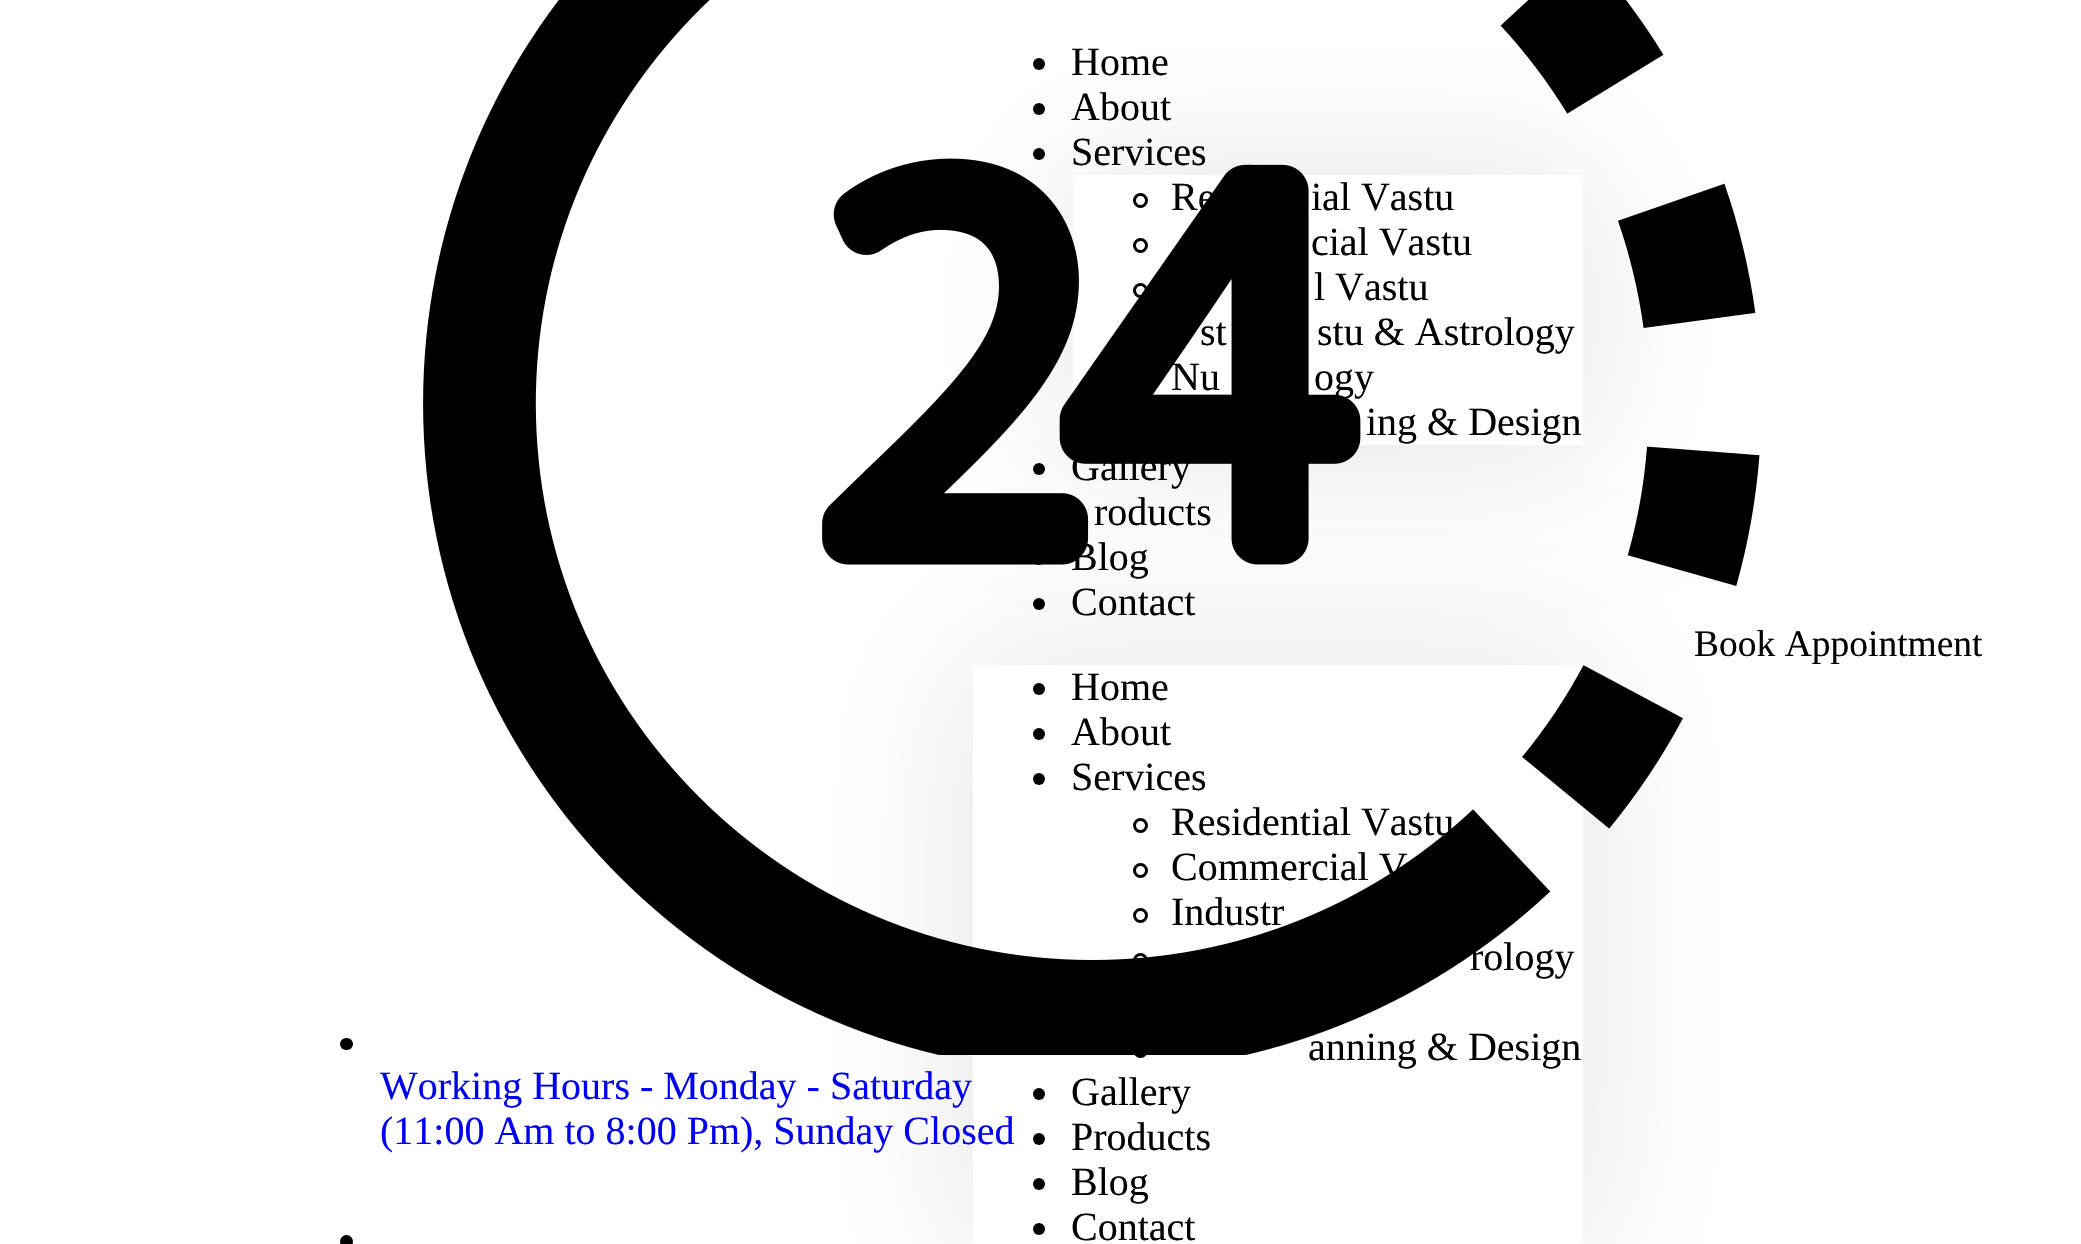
void draw(SkCanvas* canvas) {
	SkPaint fill;
	fill.setAntiAlias(true);
	auto makeFont = [&](const char* family, int weight, float size, bool italic = false) {
		SkFontStyle style(weight, SkFontStyle::kNormal_Width,
			italic ? SkFontStyle::kItalic_Slant : SkFontStyle::kUpright_Slant);
		SkFont result(fontMgr->matchFamilyStyle(family, style), size);
		result.setSubpixel(true);
		return result;
	};
	auto text = [&](const char* s, float x, float y, const SkFont& font) {
		canvas->drawString(s, x, y, font, fill);
	};
	auto roundBox = [&](float l, float t, float r, float b, float radius) {
		canvas->drawRoundRect(SkRect::MakeLTRB(l, t, r, b), radius, radius, fill);
	};
	auto picture = [&](const char* path, float l, float t, float r, float b) {
		auto image = SkImages::DeferredFromEncodedData(SkData::MakeFromFileName(path));
		canvas->drawImageRect(image, SkRect::MakeLTRB(l, t, r, b), SkSamplingOptions());
	};
	canvas->clear(0xFFFFFFFF);
	fill.setColor(0xFF000000);
	roundBox(340, 1038, 353, 1050, 6);
	picture("image0.png", 423, 0, 1760, 1055);
	canvas->drawCircle(346.5f, 1241.5f, 6.5f, fill);
	canvas->save();
	canvas->clipPath(SkPathBuilder(SkPathFillType::kEvenOdd).moveTo(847, 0).lineTo(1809, 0).lineTo(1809, 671).lineTo(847, 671).close().moveTo(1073, 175).lineTo(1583, 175).lineTo(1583, 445).lineTo(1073, 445).close().detach(), true);
	fill.setColor(0x1A000000);
	fill.setMaskFilter(SkMaskFilter::MakeBlur(kNormal_SkBlurStyle, 75));
	canvas->drawRect(SkRect::MakeLTRB(1073, 175, 1583, 445), fill);
	fill.setMaskFilter(nullptr);
	canvas->restore();
	fill.setColor(0xFF000000);
	canvas->drawCircle(1039, 64, 6, fill);
	canvas->drawCircle(1039, 109, 6, fill);
	canvas->drawCircle(1039, 154, 6, fill);
	fill.setStyle(SkPaint::kStroke_Style);
	fill.setStrokeWidth(3);
	canvas->drawCircle(1140.5f, 200.5f, 6, fill);
	canvas->drawCircle(1140.5f, 245.5f, 6, fill);
	canvas->drawCircle(1140.5f, 290.5f, 6, fill);
	canvas->save();
	canvas->clipPath(SkPathBuilder(SkPathFillType::kEvenOdd).moveTo(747, 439).lineTo(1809, 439).lineTo(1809, 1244).lineTo(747, 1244).close().moveTo(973, 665).lineTo(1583, 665).lineTo(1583, 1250).lineTo(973, 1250).close().detach(), true);
	fill.setStyle(SkPaint::kFill_Style);
	fill.setColor(0x1A000000);
	fill.setMaskFilter(SkMaskFilter::MakeBlur(kNormal_SkBlurStyle, 75));
	canvas->drawRect(SkRect::MakeLTRB(973, 665, 1583, 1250), fill);
	fill.setMaskFilter(nullptr);
	canvas->restore();
	fill.setColor(0xFF000000);
	canvas->drawCircle(1039, 469, 6, fill);
	canvas->drawCircle(1039, 559, 6, fill);
	canvas->drawCircle(1039, 604, 6, fill);
	canvas->drawCircle(1039, 689, 6, fill);
	canvas->drawCircle(1039, 734, 6, fill);
	canvas->drawCircle(1039, 779, 6, fill);
	fill.setStyle(SkPaint::kStroke_Style);
	canvas->drawCircle(1140.5f, 825.5f, 6, fill);
	canvas->drawCircle(1140.5f, 870.5f, 6, fill);
	canvas->drawCircle(1140.5f, 915.5f, 6, fill);
	canvas->drawCircle(1140.5f, 960.5f, 6, fill);
	canvas->drawCircle(1140.5f, 1050.5f, 6, fill);
	fill.setStyle(SkPaint::kFill_Style);
	canvas->drawCircle(1039, 1094, 6, fill);
	canvas->drawCircle(1039, 1139, 6, fill);
	canvas->drawCircle(1039, 1184, 6, fill);
	canvas->drawCircle(1039, 1229, 6, fill);
	auto font1 = makeFont("Liberation Serif", 400, 40);
	fill.setColor(0xFF0000EE);
	text("Working Hours - Monday - Saturday", 380, 1099, font1);
	text("(11:00 Am to 8:00 Pm), Sunday Closed", 380, 1144, font1);
	fill.setColor(0xFF000000);
	text("Home", 1071, 75, font1);
	text("About", 1071, 120, font1);
	text("Services", 1071, 165, font1);
	text("Re", 1171, 210, font1);
	text("ial Vastu", 1311, 210, font1);
	text("cial Vastu", 1311, 255, font1);
	text("l Vastu", 1314, 300, font1);
	text("st", 1200, 345, font1);
	text("stu & Astrology", 1317, 345, font1);
	text("Nu", 1171, 390, font1);
	text("ogy", 1314, 390, font1);
	text("ing & Design", 1366, 435, font1);
	text("Gallery", 1071, 480, font1);
	text("roducts", 1094, 525, font1);
	text("Blog", 1071, 570, font1);
	text("Contact", 1071, 615, font1);
	text("Home", 1071, 700, font1);
	text("About", 1071, 745, font1);
	text("Services", 1071, 790, font1);
	text("Residential Vastu", 1171, 835, font1);
	text("Commercial V", 1171, 880, font1);
	text("Industr", 1171, 925, font1);
	text("rology", 1470, 970, font1);
	text("anning & Design", 1308, 1060, font1);
	text("Gallery", 1071, 1105, font1);
	text("Products", 1071, 1150, font1);
	text("Blog", 1071, 1195, font1);
	text("Contact", 1071, 1240, font1);
	auto font2 = makeFont("Liberation Serif", 400, 37.5f);
	text("Book Appointment", 1694, 656, font2);
}
